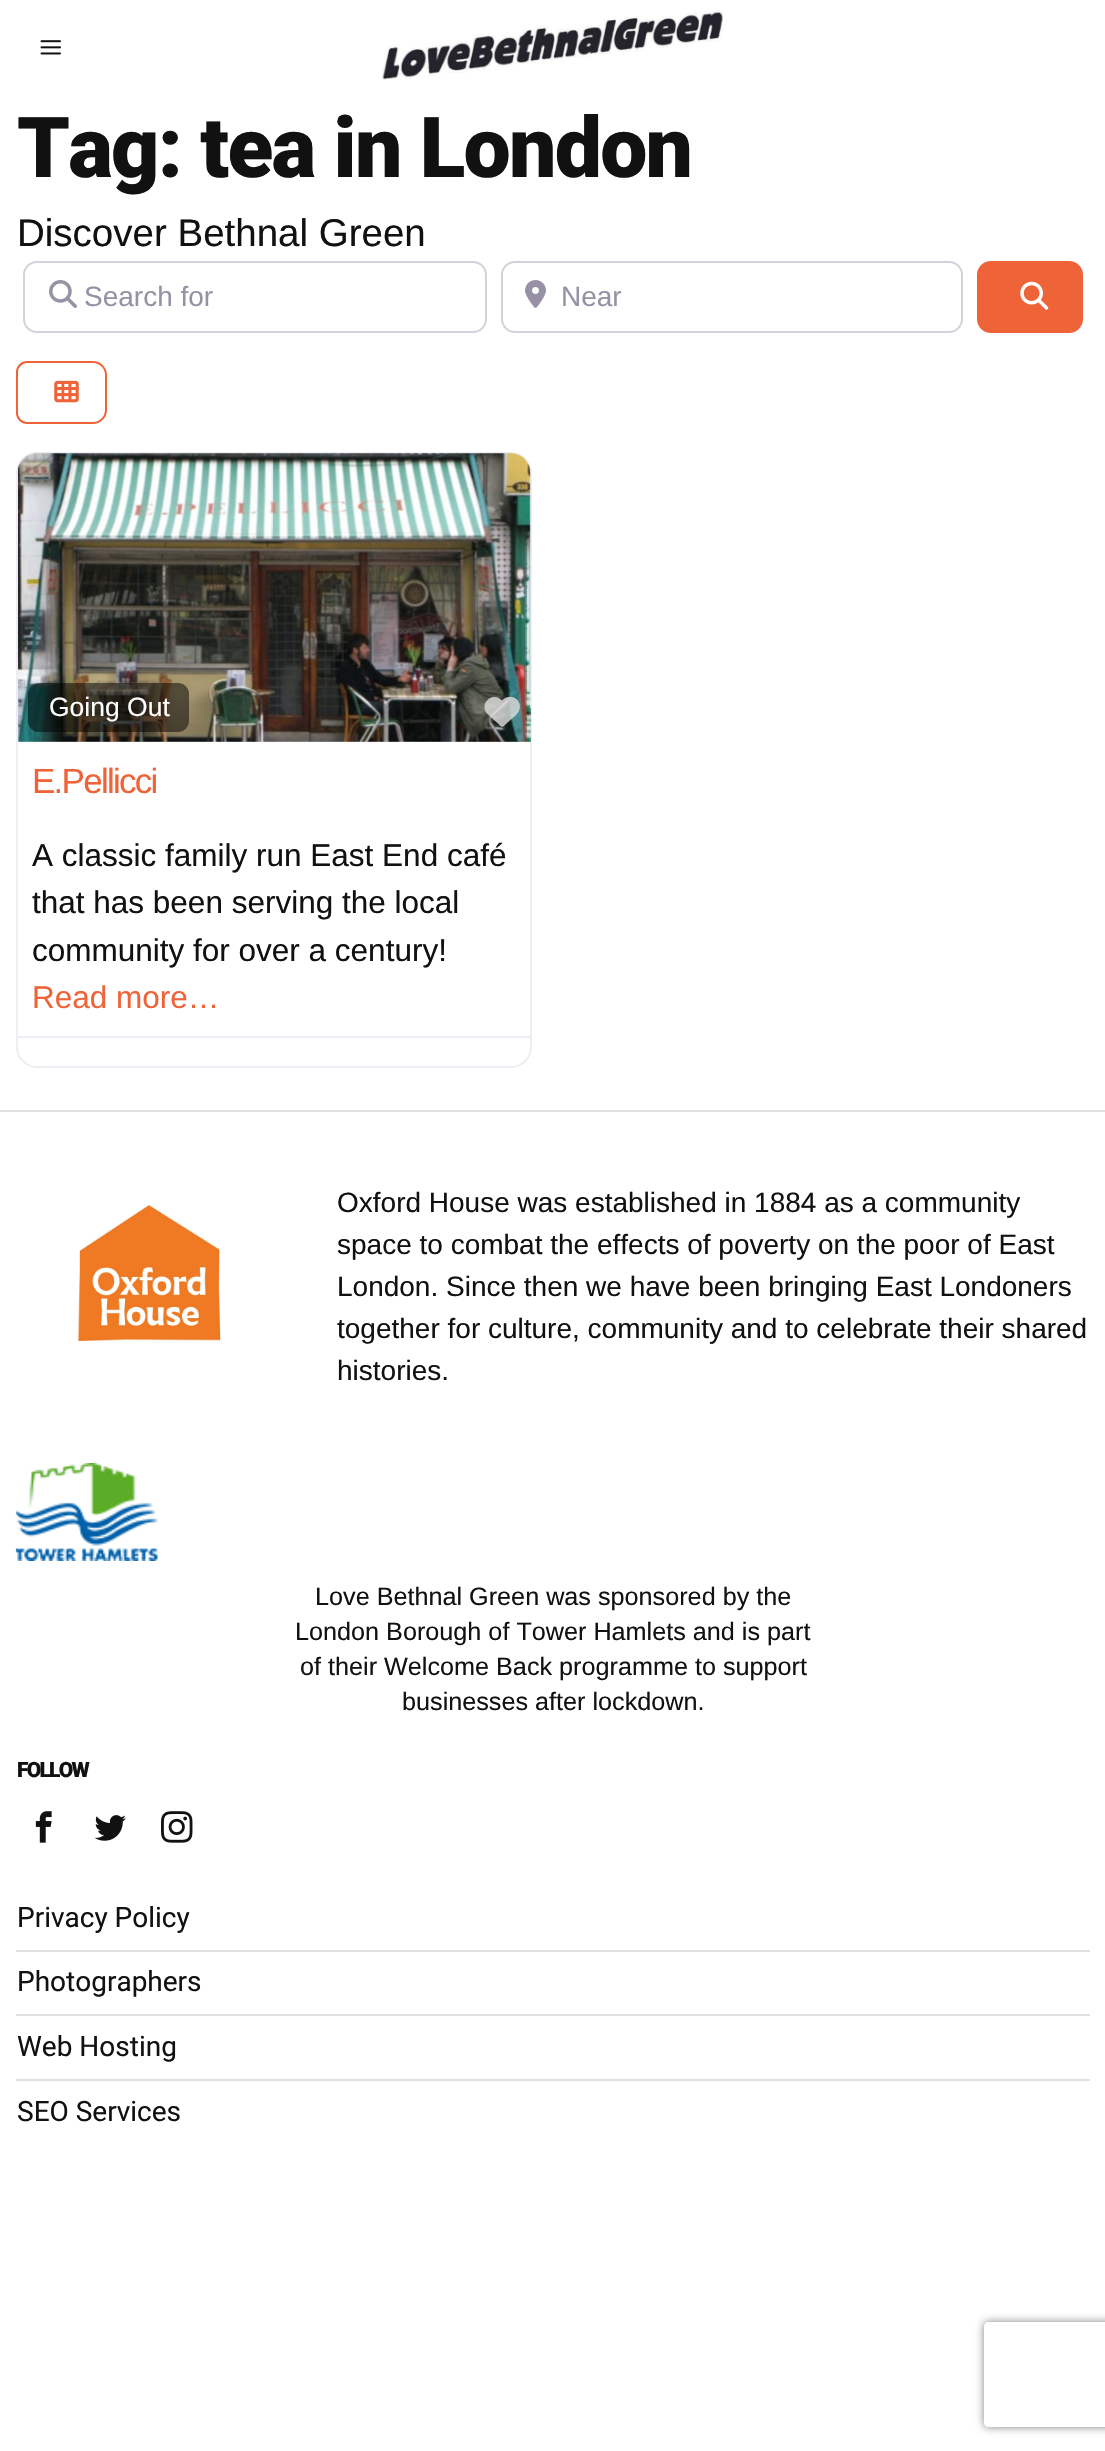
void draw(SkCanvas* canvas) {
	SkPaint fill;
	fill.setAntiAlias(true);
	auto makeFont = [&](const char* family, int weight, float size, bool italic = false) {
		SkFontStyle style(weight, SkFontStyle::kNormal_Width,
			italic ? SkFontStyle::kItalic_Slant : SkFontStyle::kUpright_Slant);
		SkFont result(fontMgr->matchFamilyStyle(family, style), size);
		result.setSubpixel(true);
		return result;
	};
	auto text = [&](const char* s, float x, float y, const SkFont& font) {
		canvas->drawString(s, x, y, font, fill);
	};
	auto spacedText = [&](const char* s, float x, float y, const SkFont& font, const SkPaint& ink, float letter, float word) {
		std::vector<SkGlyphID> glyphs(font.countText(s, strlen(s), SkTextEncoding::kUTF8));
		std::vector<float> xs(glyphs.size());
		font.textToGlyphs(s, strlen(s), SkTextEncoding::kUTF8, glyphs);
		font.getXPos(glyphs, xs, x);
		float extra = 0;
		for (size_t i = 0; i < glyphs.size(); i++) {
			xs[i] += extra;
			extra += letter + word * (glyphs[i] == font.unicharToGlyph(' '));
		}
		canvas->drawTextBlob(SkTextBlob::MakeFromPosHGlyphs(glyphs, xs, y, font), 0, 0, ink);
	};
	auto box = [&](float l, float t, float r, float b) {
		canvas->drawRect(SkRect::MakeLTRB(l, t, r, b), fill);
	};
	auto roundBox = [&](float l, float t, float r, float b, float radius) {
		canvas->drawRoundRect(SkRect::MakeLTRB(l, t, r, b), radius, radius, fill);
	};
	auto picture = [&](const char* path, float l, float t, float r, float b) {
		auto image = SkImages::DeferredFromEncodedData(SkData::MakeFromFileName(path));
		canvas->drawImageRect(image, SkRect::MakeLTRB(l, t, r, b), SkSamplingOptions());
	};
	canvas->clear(0xFFFFFFFF);
	picture("image0.png", 40, 40, 61, 55);
	picture("image1.png", 382, 10, 723, 80);
	fill.setStyle(SkPaint::kStroke_Style);
	fill.setStrokeWidth(2);
	fill.setColor(0xFFD5D2DC);
	canvas->drawRoundRect(SkRect::MakeLTRB(24, 262, 486, 332), 13, 13, fill);
	picture("image2.png", 49, 280, 77, 308);
	canvas->drawRoundRect(SkRect::MakeLTRB(502, 262, 962, 332), 13, 13, fill);
	picture("image3.png", 525, 280, 546, 308);
	fill.setStyle(SkPaint::kFill_Style);
	fill.setColor(0xFFEF6338);
	canvas->drawRoundRect(SkRect::MakeLTRB(978, 262, 1082, 332), 13, 13, fill);
	fill.setStyle(SkPaint::kStroke_Style);
	canvas->drawRoundRect(SkRect::MakeLTRB(978, 262, 1082, 332), 13, 13, fill);
	picture("image4.png", 1020, 281, 1049, 310);
	canvas->drawPath(SkPathBuilder().moveTo(27, 362).lineTo(93, 362).cubicTo(100, 362, 106, 368, 106, 375).lineTo(106, 410).cubicTo(106, 417, 100, 423, 93, 423).lineTo(27, 423).cubicTo(21.5f, 423, 17, 418.5f, 17, 413).lineTo(17, 372).cubicTo(17, 366.5f, 21.5f, 362, 27, 362).close().detach(), fill);
	picture("image5.png", 54, 380, 79, 403);
	fill.setColor(0xFFEFECF3);
	canvas->drawRoundRect(SkRect::MakeLTRB(17, 453, 531, 1067), 20, 20, fill);
	picture("image6.png", 18, 453, 531, 742);
	fill.setStyle(SkPaint::kFill_Style);
	fill.setColor(0x80000000);
	roundBox(28, 683, 189, 732, 11);
	fill.setColor(0xCCDFDFDF);
	canvas->drawPath(SkPathBuilder().moveTo(488, 714.5f).lineTo(500.5f, 726).lineTo(488, 714.5f).lineTo(498.5f, 724).cubicTo(502, 727.5f, 502.5f, 727.5f, 506, 724).lineTo(510.5f, 720).cubicTo(513, 717.5f, 517, 715, 519, 711).cubicTo(523.5f, 700.5f, 511, 691.5f, 502, 700.5f).cubicTo(491.5f, 690, 478, 705, 488, 714.5f).close().detach(), fill);
	fill.setColor(0xFFEFECF3);
	box(18, 1036, 530, 1038);
	fill.setColor(0xFFE1E1E1);
	box(0, 1110, 1105, 1112);
	picture("image7.png", 77, 1205, 221, 1342);
	picture("image8.png", 15, 1463, 158, 1561);
	picture("image9.png", 35, 1811, 52, 1843);
	picture("image10.png", 94, 1815, 126, 1841);
	picture("image11.png", 161, 1811, 193, 1843);
	box(16, 1950, 1090, 1952);
	box(16, 2014, 1090, 2016);
	box(16, 2079, 1090, 2081);
	canvas->save();
	canvas->clipPath(SkPathBuilder(SkPathFillType::kEvenOdd).moveTo(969, 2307).lineTo(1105, 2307).lineTo(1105, 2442).lineTo(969, 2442).close().moveTo(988, 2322).lineTo(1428, 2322).cubicTo(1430, 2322, 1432, 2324, 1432, 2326).lineTo(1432, 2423).cubicTo(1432, 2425, 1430, 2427, 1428, 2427).lineTo(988, 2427).cubicTo(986, 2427, 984, 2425, 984, 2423).lineTo(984, 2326).cubicTo(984, 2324, 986, 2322, 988, 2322).close().detach(), true);
	fill.setColor(0xFF808080);
	fill.setMaskFilter(SkMaskFilter::MakeBlur(kNormal_SkBlurStyle, 4.5f));
	canvas->drawRoundRect(SkRect::MakeLTRB(984, 2322, 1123, 2427), 4, 4, fill);
	fill.setMaskFilter(nullptr);
	canvas->restore();
	auto font1 = makeFont("Roboto", 900, 84);
	fill.setColor(0xFF111111);
	spacedText("Tag: tea in London", 17, 177, font1, fill, -1.75f, 0);
	auto font2 = makeFont("Liberation Sans", 400, 38.5f);
	text("Discover Bethnal Green", 17, 246, font2);
	auto font3 = makeFont("Liberation Sans", 400, 28);
	fill.setColor(0xFF9691A4);
	text("Search for", 84, 306, font3);
	text("Near", 561, 306, font3);
	auto font4 = makeFont("Liberation Sans", 400, 26.5f);
	fill.setColor(0xFFFFFFFF);
	text("Going Out", 49, 716, font4);
	auto font5 = makeFont("Liberation Sans", 400, 35);
	fill.setColor(0xFFEF6338);
	spacedText("E.Pellicci", 32, 793, font5, fill, -1.75f, 0);
	auto font6 = makeFont("Liberation Sans", 400, 31.5f);
	fill.setColor(0xFF111111);
	text("A classic family run East End café", 32, 866, font6);
	text("that has been serving the local", 32, 913, font6);
	text("community for over a century!", 32, 961, font6);
	fill.setColor(0xFFEF6338);
	text("Read more…", 32, 1008, font6);
	fill.setColor(0xFF111111);
	text("Oxford House was established in 1884 as a community", 337, 1212, font3);
	text("space to combat the effects of poverty on the poor of East", 337, 1254, font3);
	text("London. Since then we have been bringing East Londoners", 337, 1296, font3);
	text("together for culture, community and to celebrate their shared", 337, 1338, font3);
	text("histories.", 337, 1380, font3);
	auto font7 = makeFont("Liberation Sans", 400, 25.2f);
	text("Love Bethnal Green was sponsored by the", 315, 1605, font7);
	text("London Borough of Tower Hamlets and is part", 295, 1640, font7);
	text("of their Welcome Back programme to support", 300, 1675, font7);
	text("businesses after lockdown.", 402, 1710, font7);
	auto font8 = makeFont("Roboto", 900, 21);
	spacedText("FOLLOW", 17, 1777, font8, fill, -1.75f, 0);
	auto font9 = makeFont("Roboto", 400, 28);
	text("Privacy Policy", 17, 1927, font9);
	text("Photographers", 17, 1991, font9);
	text("Web Hosting", 17, 2056, font9);
	text("SEO Services", 17, 2121, font9);
}
